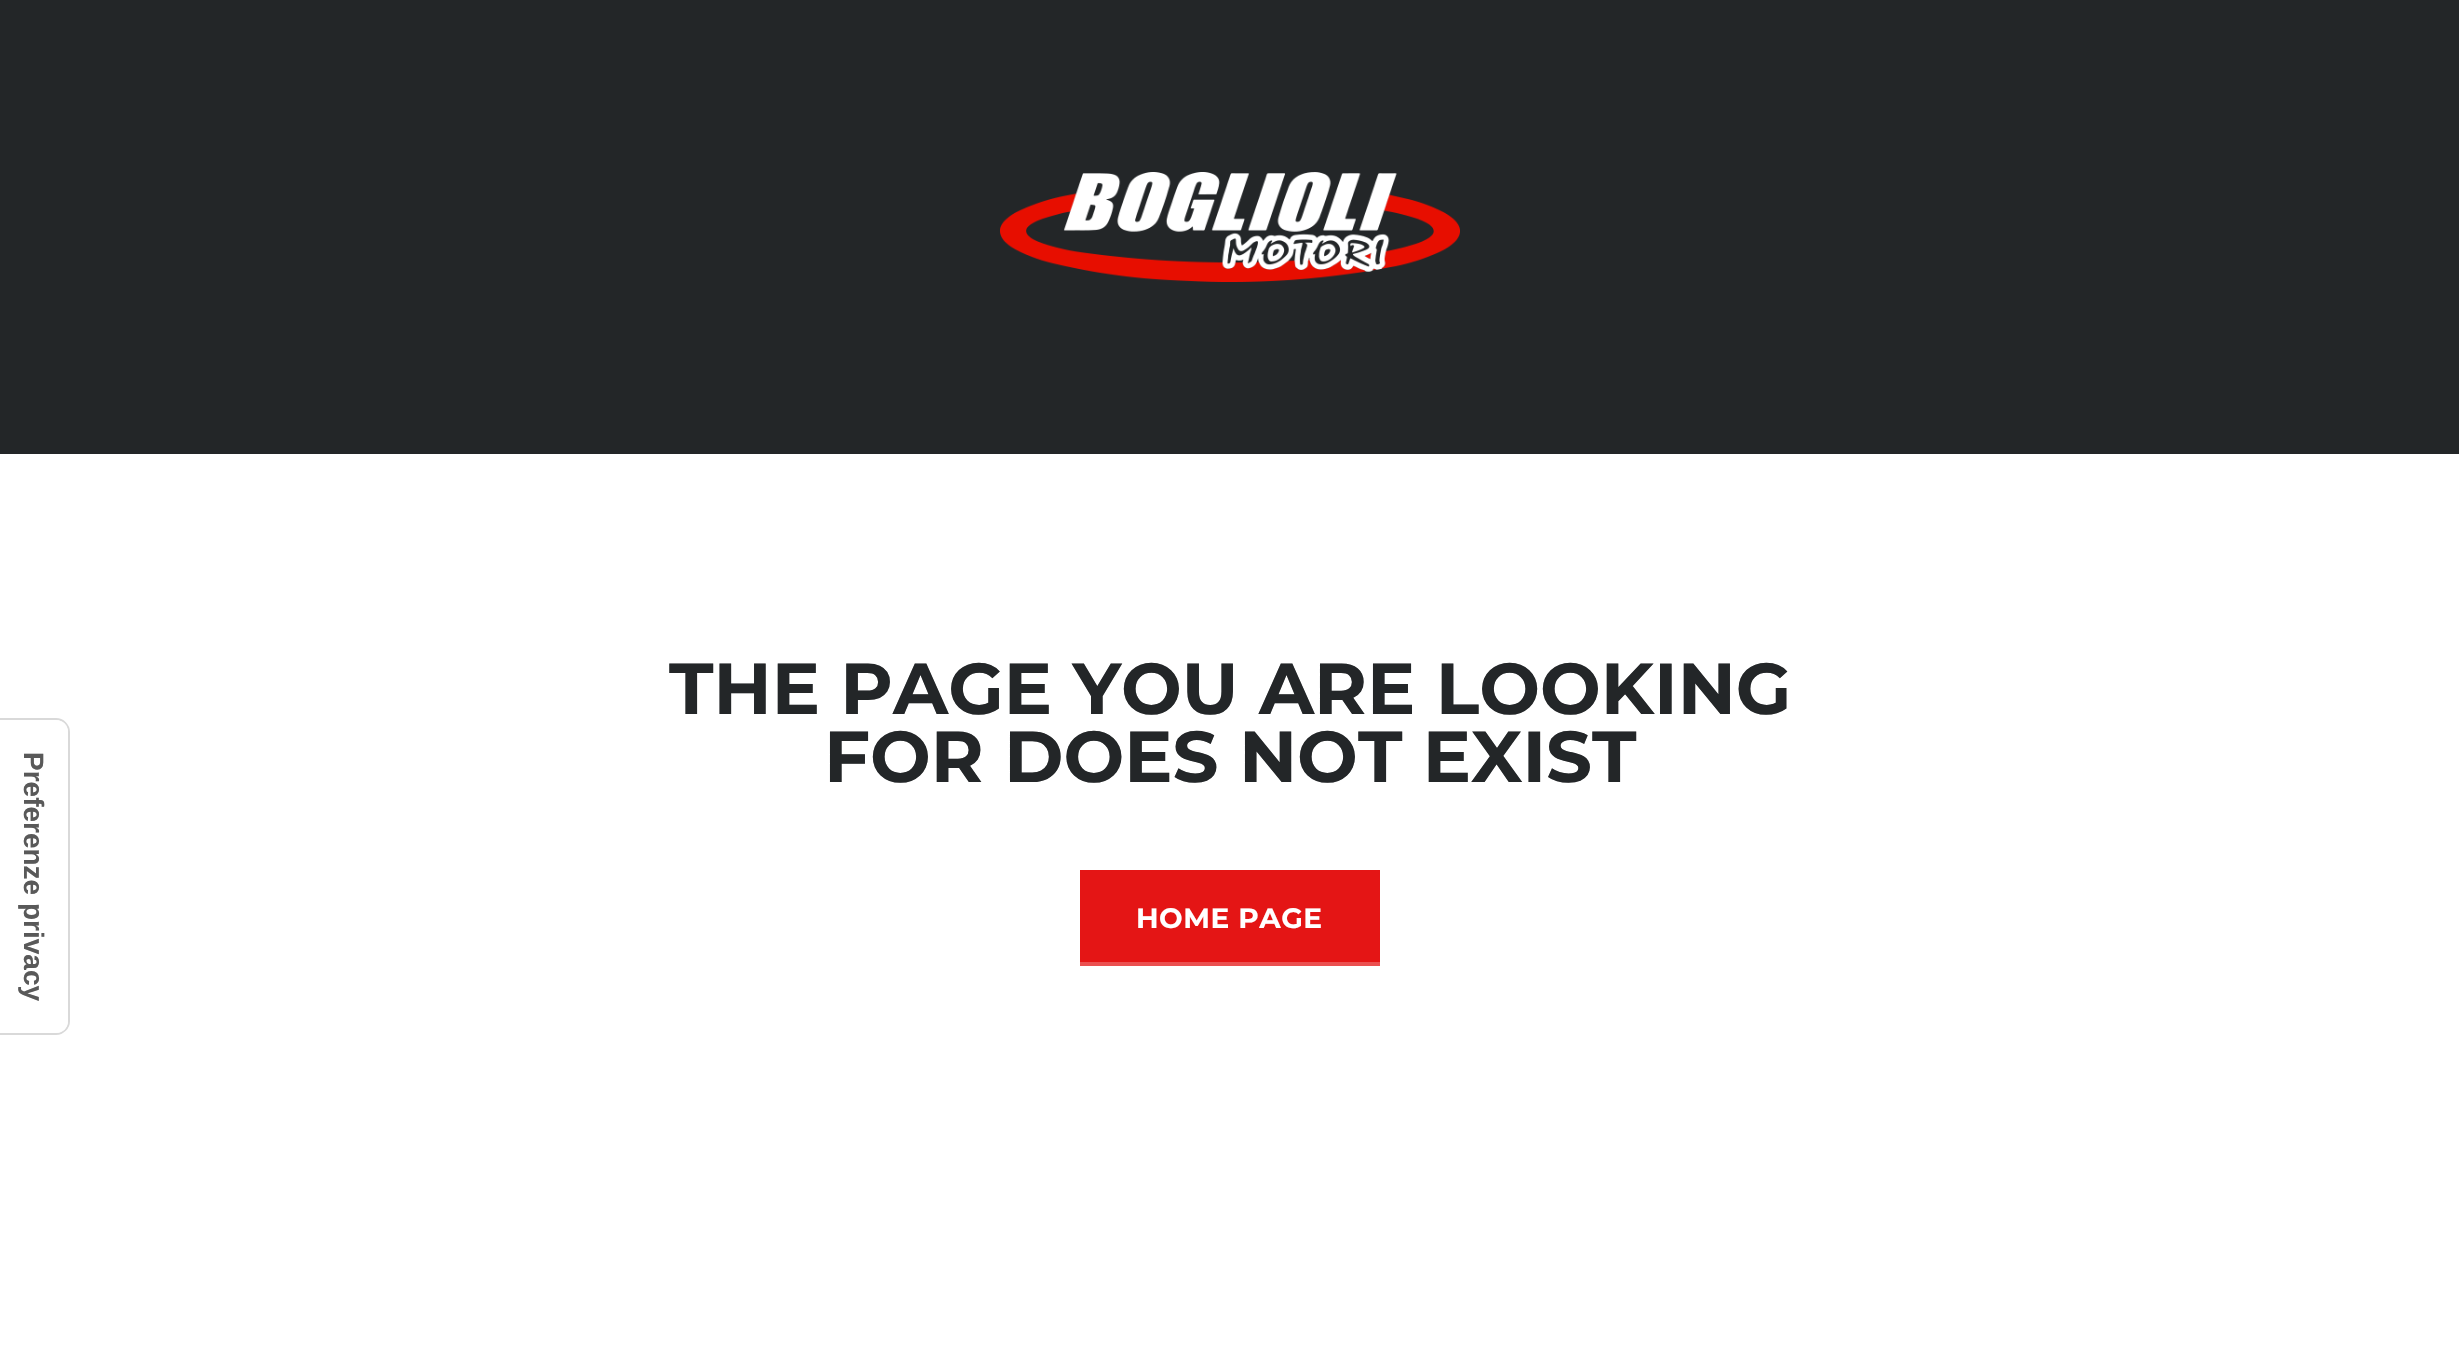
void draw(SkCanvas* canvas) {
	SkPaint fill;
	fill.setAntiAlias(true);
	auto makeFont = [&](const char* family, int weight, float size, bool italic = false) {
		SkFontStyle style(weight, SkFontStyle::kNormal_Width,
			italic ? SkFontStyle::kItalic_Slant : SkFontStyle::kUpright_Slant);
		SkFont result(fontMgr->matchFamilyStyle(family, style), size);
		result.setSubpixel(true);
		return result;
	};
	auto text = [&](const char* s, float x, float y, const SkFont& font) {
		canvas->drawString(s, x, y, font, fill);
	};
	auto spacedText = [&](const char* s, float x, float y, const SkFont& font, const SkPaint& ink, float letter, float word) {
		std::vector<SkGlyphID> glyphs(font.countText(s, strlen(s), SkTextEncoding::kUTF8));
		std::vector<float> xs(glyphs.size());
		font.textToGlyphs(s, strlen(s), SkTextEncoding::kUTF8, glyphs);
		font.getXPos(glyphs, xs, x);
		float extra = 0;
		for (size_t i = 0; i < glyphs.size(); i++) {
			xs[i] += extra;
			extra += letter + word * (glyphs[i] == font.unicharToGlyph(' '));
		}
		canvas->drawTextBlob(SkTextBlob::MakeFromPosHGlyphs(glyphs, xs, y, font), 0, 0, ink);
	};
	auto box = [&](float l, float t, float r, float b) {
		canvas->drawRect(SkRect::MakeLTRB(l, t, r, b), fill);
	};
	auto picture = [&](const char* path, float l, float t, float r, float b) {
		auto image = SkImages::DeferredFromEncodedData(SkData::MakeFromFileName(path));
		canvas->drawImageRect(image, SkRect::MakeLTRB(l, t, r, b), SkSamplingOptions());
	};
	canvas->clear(0xFFFFFFFF);
	fill.setStyle(SkPaint::kStroke_Style);
	fill.setStrokeWidth(2);
	fill.setColor(0xFFD9D9D9);
	canvas->drawPath(SkPathBuilder().moveTo(69, 732).lineTo(69, 1021).cubicTo(69, 1028, 63, 1034, 56, 1034).lineTo(-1, 1034).lineTo(-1, 719).lineTo(56, 719).cubicTo(63, 719, 69, 725, 69, 732).close().detach(), fill);
	fill.setStyle(SkPaint::kFill_Style);
	fill.setColor(0xFFFFFFFF);
	canvas->drawPath(SkPathBuilder().moveTo(68, 732).lineTo(68, 1021).cubicTo(68, 1028, 63, 1033, 56, 1033).lineTo(0, 1033).lineTo(0, 720).lineTo(56, 720).cubicTo(63, 720, 68, 725, 68, 732).close().detach(), fill);
	fill.setColor(0xFF232628);
	box(0, 0, 2459, 454);
	picture("image0.png", 1000, 172, 1460, 282);
	fill.setColor(0xFFEB5050);
	box(1080, 962, 1380, 966);
	fill.setColor(0xFFE41515);
	box(1080, 870, 1380, 962);
	auto font1 = makeFont("Liberation Sans", 700, 28);
	fill.setColor(0xFF595959);
	canvas->save();
	canvas->rotate(90, 24, 752);
	text("Preferenze privacy", 24, 752, font1);
	canvas->restore();
	auto font2 = makeFont("Montserrat", 700, 72);
	fill.setColor(0xFF232628);
	text("THE PAGE YOU ARE LOOKING", 669, 714, font2);
	text("FOR DOES NOT EXIST", 824, 782, font2);
	auto font3 = makeFont("Montserrat", 700, 28);
	fill.setColor(0xFFFFFFFF);
	spacedText("HOME PAGE", 1136, 928, font3, fill, 0.5f, 0);
}
